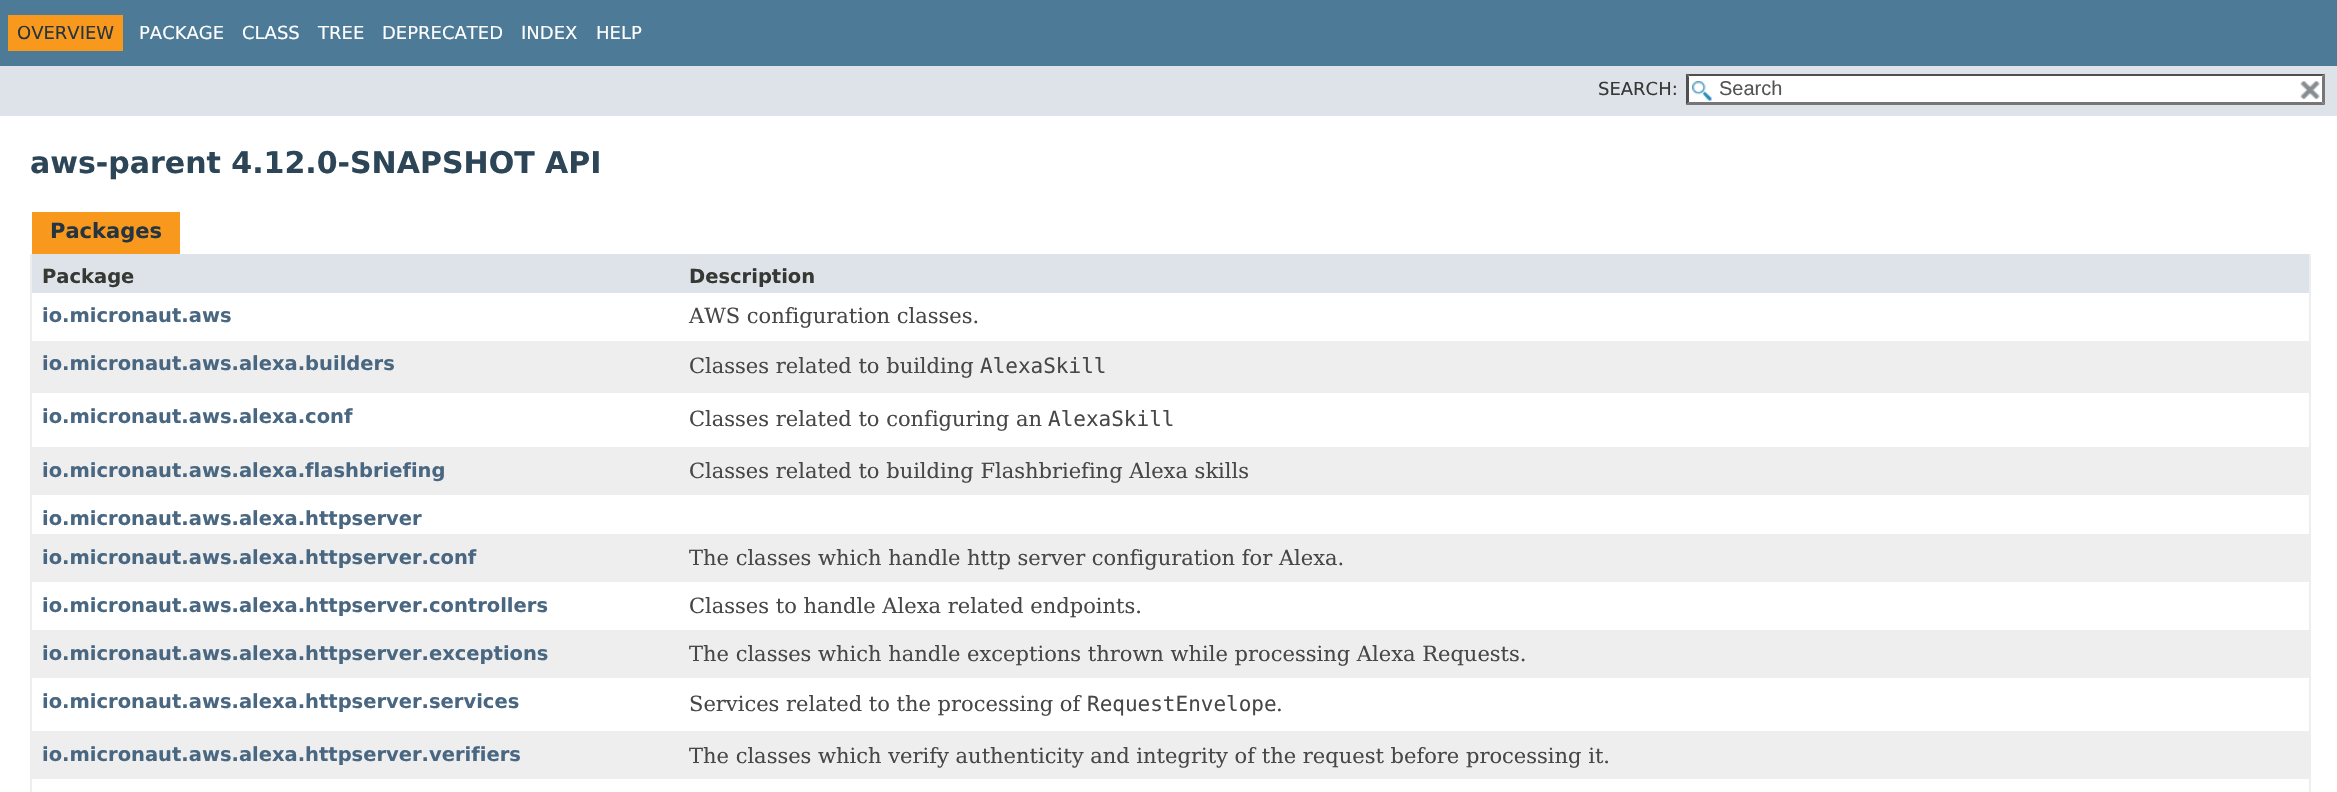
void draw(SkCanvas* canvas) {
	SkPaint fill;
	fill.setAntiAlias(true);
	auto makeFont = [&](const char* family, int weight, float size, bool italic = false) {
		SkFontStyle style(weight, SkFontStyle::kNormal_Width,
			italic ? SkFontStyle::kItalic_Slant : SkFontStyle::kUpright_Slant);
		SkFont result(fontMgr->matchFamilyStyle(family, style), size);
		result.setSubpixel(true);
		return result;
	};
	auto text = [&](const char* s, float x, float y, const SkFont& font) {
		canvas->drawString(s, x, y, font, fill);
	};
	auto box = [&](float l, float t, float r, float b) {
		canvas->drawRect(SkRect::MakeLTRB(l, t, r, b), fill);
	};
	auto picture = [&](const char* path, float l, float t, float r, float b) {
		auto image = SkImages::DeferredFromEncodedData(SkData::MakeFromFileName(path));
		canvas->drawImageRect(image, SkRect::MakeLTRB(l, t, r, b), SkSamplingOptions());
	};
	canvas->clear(0xFFFFFFFF);
	fill.setColor(0xFF4D7A97);
	box(0, 0, 2337, 66);
	fill.setColor(0xFFF8981D);
	box(8, 15, 123, 51);
	fill.setColor(0xFFDEE3E9);
	box(0, 66, 2337, 116);
	fill.setColor(0xFFFFFFFF);
	box(1686, 74, 2325, 105);
	picture("image0.png", 1692, 81, 1712, 101);
	fill.setColor(0xFF4F4F4F);
	canvas->drawPath(SkPathBuilder().moveTo(1686, 74).lineTo(2325, 74).lineTo(2322, 76).lineTo(1689, 76).close().detach(), fill);
	fill.setColor(0xFF767676);
	canvas->drawPath(SkPathBuilder().moveTo(2325, 73.5f).lineTo(2325, 105).lineTo(2322, 102).lineTo(2322, 76.5f).close().detach(), fill);
	canvas->drawPath(SkPathBuilder().moveTo(2325, 105).lineTo(1686, 105).lineTo(1689, 102).lineTo(2322, 102).close().detach(), fill);
	fill.setColor(0xFF4F4F4F);
	canvas->drawPath(SkPathBuilder().moveTo(1686, 105).lineTo(1686, 73.5f).lineTo(1689, 76.5f).lineTo(1689, 102).close().detach(), fill);
	picture("image1.png", 2300, 81, 2320, 100);
	fill.setColor(0xFFF8981D);
	box(32, 212, 180, 254);
	fill.setColor(0xFFEEEEEE);
	box(2309, 254, 2311, 792);
	box(30, 254, 32, 792);
	fill.setColor(0xFFDEE3E9);
	box(32, 254, 2309, 293);
	fill.setColor(0xFFEEEEEF);
	box(32, 341, 2309, 393);
	box(32, 447, 2309, 495);
	box(32, 534, 2309, 582);
	box(32, 630, 2309, 678);
	box(32, 731, 2309, 779);
	auto font1 = makeFont("DejaVu Sans", 400, 18);
	fill.setColor(0xFF253441);
	text("OVERVIEW", 17, 39, font1);
	fill.setColor(0xFFFFFFFF);
	text("PACKAGE", 139, 39, font1);
	text("CLASS", 242, 39, font1);
	text("TREE", 318, 39, font1);
	text("DEPRECATED", 382, 39, font1);
	text("INDEX", 521, 39, font1);
	text("HELP", 596, 39, font1);
	fill.setColor(0xFF353833);
	text("SEARCH:", 1598, 95, font1);
	auto font2 = makeFont("Liberation Sans", 400, 20);
	fill.setColor(0xFF545454);
	text("Search", 1719, 95, font2);
	auto font3 = makeFont("DejaVu Sans", 700, 30);
	fill.setColor(0xFF2C4557);
	text("aws-parent 4.12.0-SNAPSHOT API", 30, 173, font3);
	auto font4 = makeFont("DejaVu Sans", 700, 21);
	fill.setColor(0xFF253441);
	text("Packages", 50, 238, font4);
	auto font5 = makeFont("DejaVu Sans", 700, 19.5f);
	fill.setColor(0xFF353833);
	text("Package", 42, 283, font5);
	text("Description", 689, 283, font5);
	fill.setColor(0xFF4A6782);
	text("io.micronaut.aws", 42, 322, font5);
	auto font6 = makeFont("DejaVu Serif", 400, 21);
	fill.setColor(0xFF474747);
	text("AWS configuration classes.", 689, 323, font6);
	fill.setColor(0xFF4A6782);
	text("io.micronaut.aws.alexa.builders", 42, 370, font5);
	fill.setColor(0xFF474747);
	text("Classes related to building", 689, 373, font6);
	auto font7 = makeFont("DejaVu Sans Mono", 400, 21);
	text("AlexaSkill", 980, 373, font7);
	fill.setColor(0xFF4A6782);
	text("io.micronaut.aws.alexa.conf", 42, 423, font5);
	fill.setColor(0xFF474747);
	text("Classes related to configuring an", 689, 426, font6);
	text("AlexaSkill", 1048, 426, font7);
	fill.setColor(0xFF4A6782);
	text("io.micronaut.aws.alexa.flashbriefing", 42, 477, font5);
	fill.setColor(0xFF474747);
	text("Classes related to building Flashbriefing Alexa skills", 689, 478, font6);
	fill.setColor(0xFF4A6782);
	text("io.micronaut.aws.alexa.httpserver", 42, 525, font5);
	text("io.micronaut.aws.alexa.httpserver.conf", 42, 564, font5);
	fill.setColor(0xFF474747);
	text("The classes which handle http server configuration for Alexa.", 689, 565, font6);
	fill.setColor(0xFF4A6782);
	text("io.micronaut.aws.alexa.httpserver.controllers", 42, 612, font5);
	fill.setColor(0xFF474747);
	text("Classes to handle Alexa related endpoints.", 689, 613, font6);
	fill.setColor(0xFF4A6782);
	text("io.micronaut.aws.alexa.httpserver.exceptions", 42, 660, font5);
	fill.setColor(0xFF474747);
	text("The classes which handle exceptions thrown while processing Alexa Requests.", 689, 661, font6);
	fill.setColor(0xFF4A6782);
	text("io.micronaut.aws.alexa.httpserver.services", 42, 708, font5);
	fill.setColor(0xFF474747);
	text("Services related to the processing of", 689, 711, font6);
	text("RequestEnvelope", 1087, 711, font7);
	text(".", 1276, 711, font6);
	fill.setColor(0xFF4A6782);
	text("io.micronaut.aws.alexa.httpserver.verifiers", 42, 761, font5);
	fill.setColor(0xFF474747);
	text("The classes which verify authenticity and integrity of the request before processing it.", 689, 763, font6);
}
